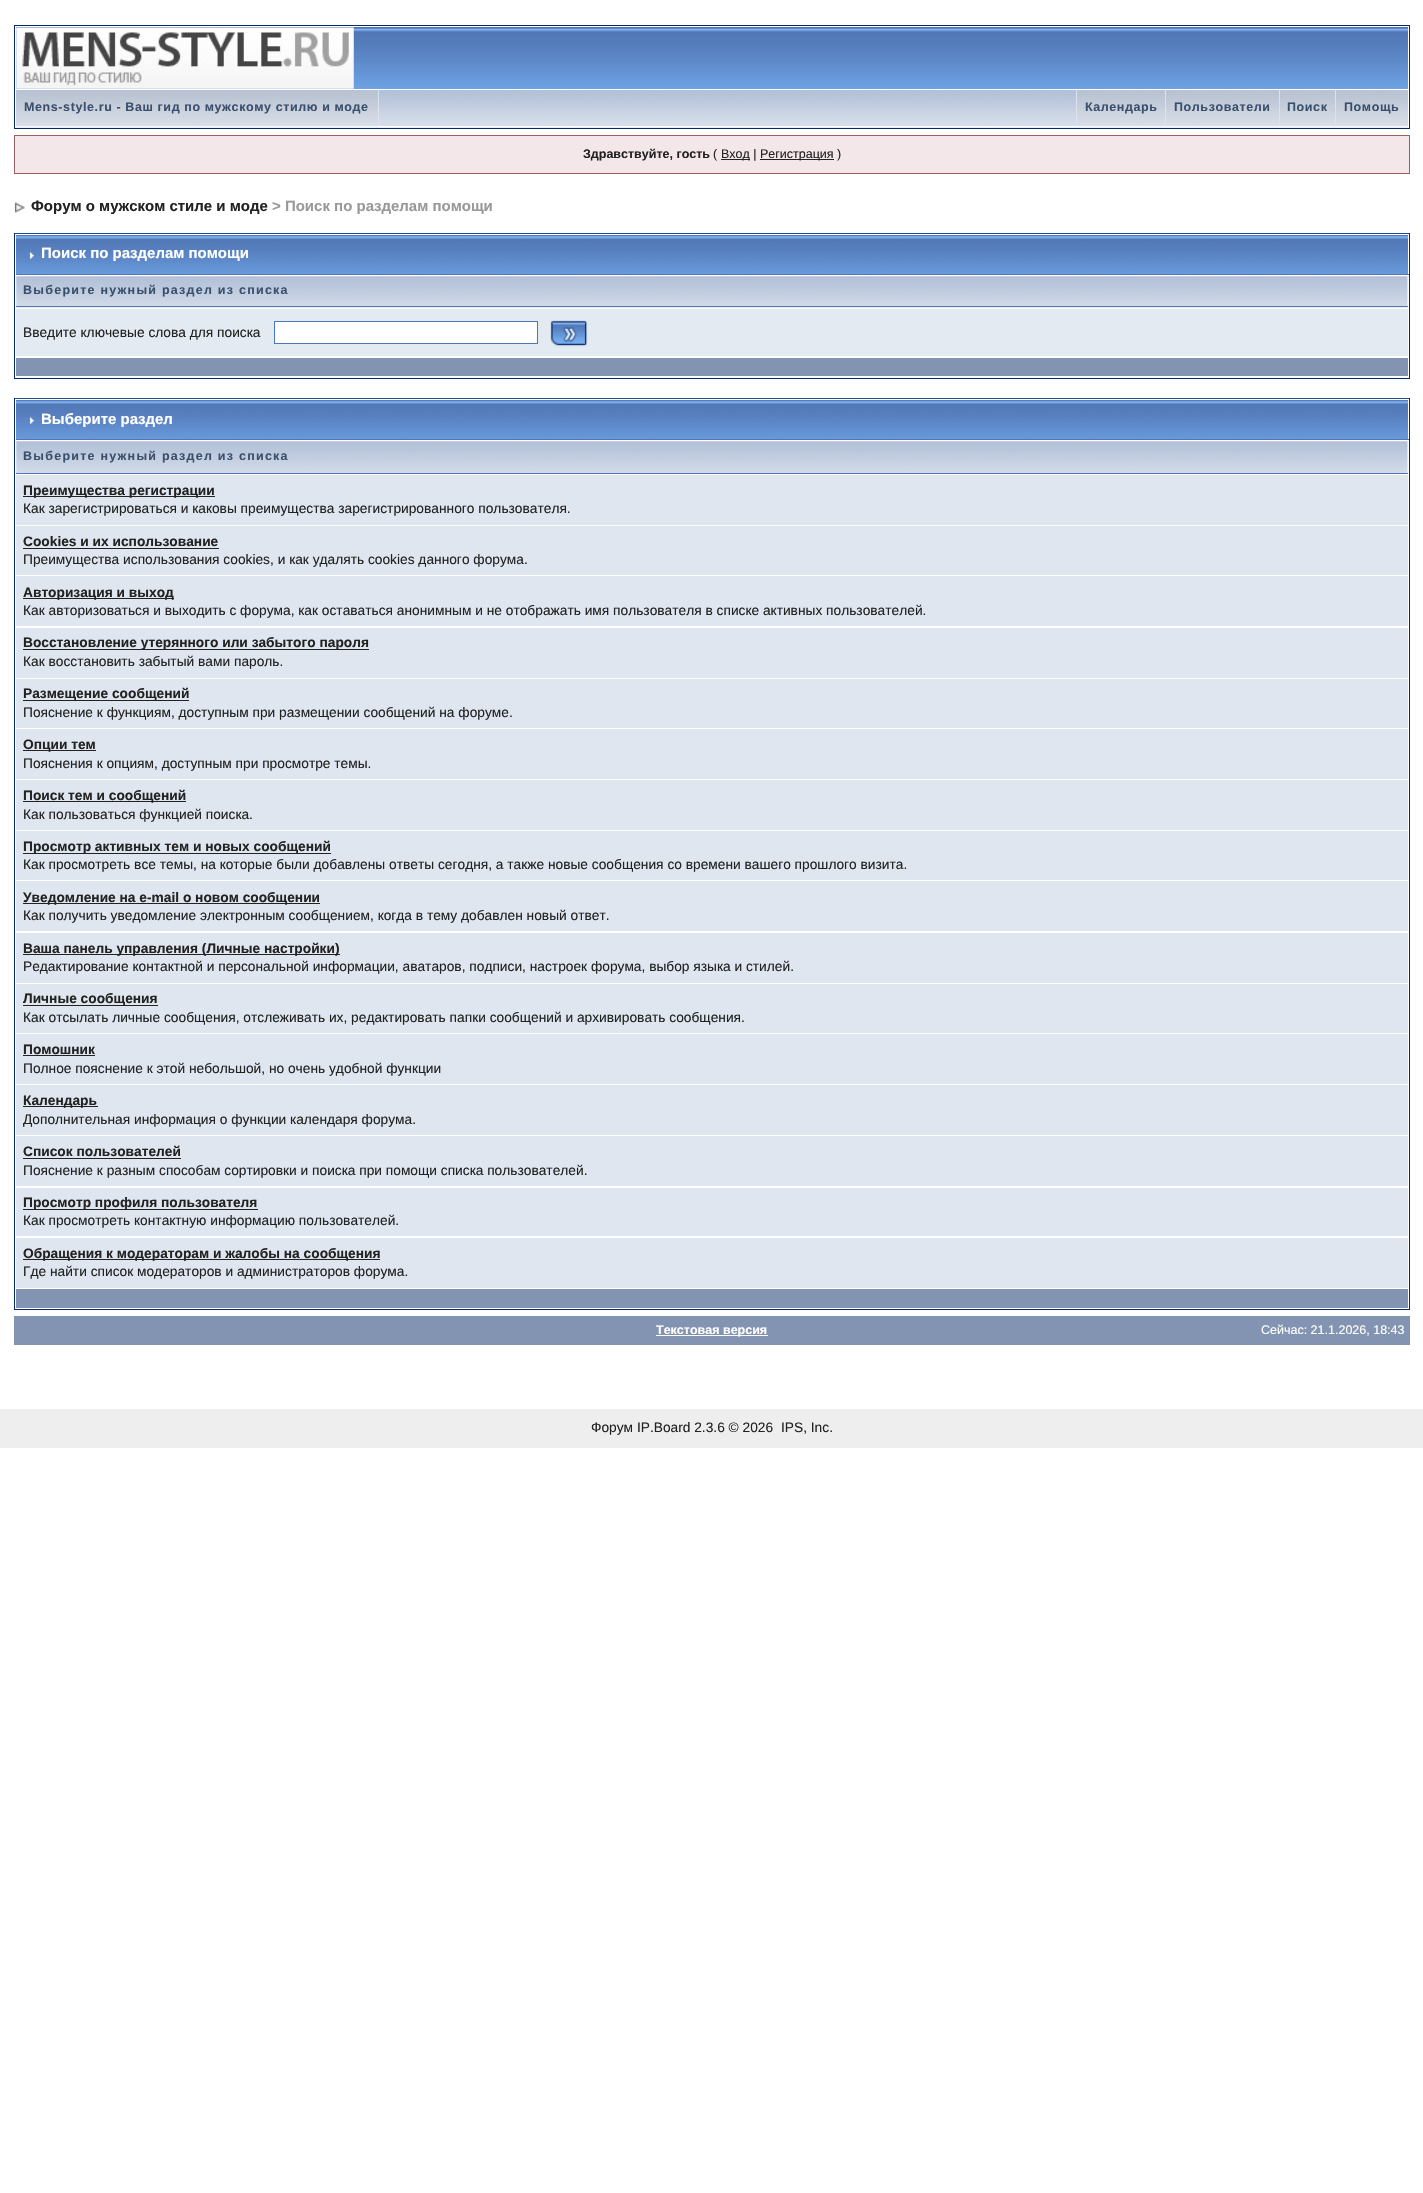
void draw(SkCanvas* canvas) {
	SkPaint fill;
	fill.setAntiAlias(true);
	auto makeFont = [&](const char* family, int weight, float size, bool italic = false) {
		SkFontStyle style(weight, SkFontStyle::kNormal_Width,
			italic ? SkFontStyle::kItalic_Slant : SkFontStyle::kUpright_Slant);
		SkFont result(fontMgr->matchFamilyStyle(family, style), size);
		result.setSubpixel(true);
		return result;
	};
	auto text = [&](const char* s, float x, float y, const SkFont& font) {
		canvas->drawString(s, x, y, font, fill);
	};
	auto spacedText = [&](const char* s, float x, float y, const SkFont& font, const SkPaint& ink, float letter, float word) {
		std::vector<SkGlyphID> glyphs(font.countText(s, strlen(s), SkTextEncoding::kUTF8));
		std::vector<float> xs(glyphs.size());
		font.textToGlyphs(s, strlen(s), SkTextEncoding::kUTF8, glyphs);
		font.getXPos(glyphs, xs, x);
		float extra = 0;
		for (size_t i = 0; i < glyphs.size(); i++) {
			xs[i] += extra;
			extra += letter + word * (glyphs[i] == font.unicharToGlyph(' '));
		}
		canvas->drawTextBlob(SkTextBlob::MakeFromPosHGlyphs(glyphs, xs, y, font), 0, 0, ink);
	};
	auto box = [&](float l, float t, float r, float b) {
		canvas->drawRect(SkRect::MakeLTRB(l, t, r, b), fill);
	};
	auto picture = [&](const char* path, float l, float t, float r, float b) {
		auto image = SkImages::DeferredFromEncodedData(SkData::MakeFromFileName(path));
		canvas->drawImageRect(image, SkRect::MakeLTRB(l, t, r, b), SkSamplingOptions());
	};
	canvas->clear(0xFFFFFFFF);
	fill.setStyle(SkPaint::kStroke_Style);
	fill.setStrokeWidth(1);
	fill.setColor(0xFF072A66);
	canvas->drawRect(SkRect::MakeLTRB(14.5f, 25.5f, 1409.5f, 128.5f), fill);
	picture("image0.png", 16, 27, 1408, 89);
	picture("image1.png", 16, 27, 354, 89);
	picture("image2.png", 16, 90, 1408, 128);
	fill.setStyle(SkPaint::kFill_Style);
	fill.setColor(0xFFFFFFFF);
	box(15, 126, 1409, 127);
	picture("image3.png", 16, 90, 379, 127);
	fill.setColor(0xFFDCE3EE);
	box(378, 90, 379, 126);
	picture("image4.png", 1076, 90, 1165, 127);
	box(1076, 90, 1077, 126);
	picture("image5.png", 1165, 90, 1279, 127);
	box(1165, 90, 1166, 126);
	picture("image6.png", 1279, 90, 1335, 127);
	box(1279, 90, 1280, 126);
	picture("image7.png", 1335, 90, 1408, 127);
	box(1335, 90, 1336, 126);
	fill.setColor(0xFFF4E7EA);
	canvas->drawRect(SkRect::MakeLTRB(14.5f, 135.5f, 1409.5f, 173.5f), fill);
	fill.setStyle(SkPaint::kStroke_Style);
	fill.setColor(0xFF986265);
	canvas->drawRect(SkRect::MakeLTRB(14.5f, 135.5f, 1409.5f, 173.5f), fill);
	fill.setStyle(SkPaint::kFill_Style);
	fill.setColor(0xFF222222);
	box(721, 159, 750, 160);
	box(760, 159, 834, 160);
	picture("image8.png", 14, 202, 26, 213);
	fill.setStyle(SkPaint::kStroke_Style);
	fill.setColor(0xFF072A66);
	canvas->drawRect(SkRect::MakeLTRB(14.5f, 233.5f, 1409.5f, 378.5f), fill);
	picture("image9.png", 15, 233, 1409, 274);
	fill.setStyle(SkPaint::kFill_Style);
	fill.setColor(0xFFFFFFFF);
	box(15, 234, 1409, 235);
	box(1408, 234, 1409, 275);
	fill.setColor(0xFF5176B5);
	box(15, 274, 1409, 275);
	fill.setColor(0xFFFFFFFF);
	box(15, 234, 16, 275);
	picture("image10.png", 29, 252, 34, 259);
	picture("image11.png", 16, 276, 1408, 308);
	fill.setColor(0xFF5176B5);
	box(16, 306, 1408, 307);
	fill.setColor(0xFFE4EAF2);
	box(16, 309, 1408, 356);
	fill.setColor(0xFFFFFFFF);
	canvas->drawRect(SkRect::MakeLTRB(274.5f, 321.5f, 537.5f, 343.5f), fill);
	fill.setStyle(SkPaint::kStroke_Style);
	fill.setColor(0xFF4C77B6);
	canvas->drawRect(SkRect::MakeLTRB(274.5f, 321.5f, 537.5f, 343.5f), fill);
	picture("image12.png", 550, 320, 588, 347);
	fill.setStyle(SkPaint::kFill_Style);
	fill.setColor(0xFF8394B2);
	box(16, 358, 1408, 376);
	fill.setStyle(SkPaint::kStroke_Style);
	fill.setColor(0xFF072A66);
	canvas->drawRect(SkRect::MakeLTRB(14.5f, 398.5f, 1409.5f, 1309.5f), fill);
	picture("image9.png", 15, 398, 1409, 439);
	fill.setStyle(SkPaint::kFill_Style);
	fill.setColor(0xFFFFFFFF);
	box(15, 399, 1409, 400);
	box(1408, 399, 1409, 440);
	fill.setColor(0xFF5176B5);
	box(15, 439, 1409, 440);
	fill.setColor(0xFFFFFFFF);
	box(15, 399, 16, 440);
	picture("image10.png", 29, 417, 34, 424);
	picture("image13.png", 16, 441, 1408, 473);
	fill.setColor(0xFF5176B5);
	box(16, 473, 1408, 474);
	fill.setColor(0xFFDFE6EF);
	box(16, 475, 1408, 525);
	fill.setColor(0xFF222222);
	box(23, 496, 215, 497);
	fill.setColor(0xFFDFE6EF);
	box(16, 526, 1408, 575);
	fill.setColor(0xFF222222);
	box(23, 548, 219, 549);
	fill.setColor(0xFFDFE6EF);
	box(16, 576, 1408, 626);
	fill.setColor(0xFF222222);
	box(23, 598, 174, 599);
	fill.setColor(0xFFDFE6EF);
	box(16, 628, 1408, 678);
	fill.setColor(0xFF222222);
	box(23, 649, 369, 650);
	fill.setColor(0xFFDFE6EF);
	box(16, 679, 1408, 728);
	fill.setColor(0xFF222222);
	box(23, 700, 189, 701);
	fill.setColor(0xFFDFE6EF);
	box(16, 729, 1408, 779);
	fill.setColor(0xFF222222);
	box(23, 750, 96, 751);
	fill.setColor(0xFFDFE6EF);
	box(16, 780, 1408, 830);
	fill.setColor(0xFF222222);
	box(23, 801, 186, 802);
	fill.setColor(0xFFDFE6EF);
	box(16, 831, 1408, 880);
	fill.setColor(0xFF222222);
	box(23, 853, 331, 854);
	fill.setColor(0xFFDFE6EF);
	box(16, 881, 1408, 931);
	fill.setColor(0xFF222222);
	box(23, 903, 320, 904);
	fill.setColor(0xFFDFE6EF);
	box(16, 933, 1408, 983);
	fill.setColor(0xFF222222);
	box(23, 954, 340, 955);
	fill.setColor(0xFFDFE6EF);
	box(16, 984, 1408, 1033);
	fill.setColor(0xFF222222);
	box(23, 1005, 158, 1006);
	fill.setColor(0xFFDFE6EF);
	box(16, 1034, 1408, 1084);
	fill.setColor(0xFF222222);
	box(23, 1055, 95, 1056);
	fill.setColor(0xFFDFE6EF);
	box(16, 1085, 1408, 1135);
	fill.setColor(0xFF222222);
	box(23, 1106, 98, 1107);
	fill.setColor(0xFFDFE6EF);
	box(16, 1136, 1408, 1186);
	fill.setColor(0xFF222222);
	box(23, 1158, 181, 1159);
	fill.setColor(0xFFDFE6EF);
	box(16, 1188, 1408, 1236);
	fill.setColor(0xFF222222);
	box(23, 1209, 258, 1210);
	fill.setColor(0xFFDFE6EF);
	box(16, 1238, 1408, 1288);
	fill.setColor(0xFF222222);
	box(23, 1259, 380, 1260);
	fill.setColor(0xFF8394B2);
	box(16, 1289, 1408, 1308);
	box(14, 1316, 1410, 1345);
	fill.setColor(0xFFFFFFFF);
	box(656, 1335, 768, 1336);
	fill.setColor(0xFFEEEEEE);
	box(0, 1409, 1423, 1448);
	auto font1 = makeFont("Liberation Sans", 700, 12.5f);
	fill.setColor(0xFF3A4F6C);
	spacedText("Mens-style.ru - Ваш гид по мужскому стилю и моде", 24, 111, font1, fill, 0.6f, 0);
	spacedText("Календарь", 1085, 111, font1, fill, 0.6f, 0);
	spacedText("Пользователи", 1174, 111, font1, fill, 0.6f, 0);
	spacedText("Поиск", 1287, 111, font1, fill, 0.6f, 0);
	spacedText("Помощь", 1344, 111, font1, fill, 0.6f, 0);
	fill.setColor(0xFF222222);
	text("Здравствуйте, гость", 583, 158, font1);
	auto font2 = makeFont("Liberation Sans", 400, 12.5f);
	text("(", 713, 158, font2);
	text("Вход |", 721, 158, font2);
	text("Регистрация )", 760, 158, font2);
	auto font3 = makeFont("Liberation Sans", 700, 15);
	text("Форум о мужском стиле и моде", 31, 211, font3);
	fill.setColor(0xFF999999);
	text("> Поиск по разделам помощи", 272, 211, font3);
	fill.setColor(0xFFFFFFFF);
	text("Поиск по разделам помощи", 41, 258, font3);
	fill.setColor(0xFF3A4F6C);
	spacedText("Выберите нужный раздел из списка", 23, 294, font1, fill, 1.25f, 0);
	auto font4 = makeFont("Liberation Sans", 400, 13.75f);
	fill.setColor(0xFF222222);
	text("Введите ключевые слова для поиска", 23, 337, font4);
	fill.setColor(0xFFFFFFFF);
	text("Выберите раздел", 41, 424, font3);
	fill.setColor(0xFF3A4F6C);
	spacedText("Выберите нужный раздел из списка", 23, 460, font1, fill, 1.25f, 0);
	auto font5 = makeFont("Liberation Sans", 700, 13.75f);
	fill.setColor(0xFF222222);
	text("Преимущества регистрации", 23, 495, font5);
	text("Как зарегистрироваться и каковы преимущества зарегистрированного пользователя.", 23, 513, font4);
	text("Cookies и их использование", 23, 546, font5);
	text("Преимущества использования cookies, и как удалять cookies данного форума.", 23, 564, font4);
	text("Авторизация и выход", 23, 597, font5);
	text("Как авторизоваться и выходить с форума, как оставаться анонимным и не отображать имя пользователя в списке активных пользователей.", 23, 615, font4);
	text("Восстановление утерянного или забытого пароля", 23, 647, font5);
	text("Как восстановить забытый вами пароль.", 23, 666, font4);
	text("Размещение сообщений", 23, 698, font5);
	text("Пояснение к функциям, доступным при размещении сообщений на форуме.", 23, 717, font4);
	text("Опции тем", 23, 749, font5);
	text("Пояснения к опциям, доступным при просмотре темы.", 23, 768, font4);
	text("Поиск тем и сообщений", 23, 800, font5);
	text("Как пользоваться функцией поиска.", 23, 819, font4);
	text("Просмотр активных тем и новых сообщений", 23, 851, font5);
	text("Как просмотреть все темы, на которые были добавлены ответы сегодня, а также новые сообщения со времени вашего прошлого визита.", 23, 869, font4);
	text("Уведомление на е-mail о новом сообщении", 23, 902, font5);
	text("Как получить уведомление электронным сообщением, когда в тему добавлен новый ответ.", 23, 920, font4);
	text("Ваша панель управления (Личные настройки)", 23, 953, font5);
	text("Редактирование контактной и персональной информации, аватаров, подписи, настроек форума, выбор языка и стилей.", 23, 971, font4);
	text("Личные сообщения", 23, 1003, font5);
	text("Как отсылать личные сообщения, отслеживать их, редактировать папки сообщений и архивировать сообщения.", 23, 1022, font4);
	text("Помошник", 23, 1054, font5);
	text("Полное пояснение к этой небольшой, но очень удобной функции", 23, 1073, font4);
	text("Календарь", 23, 1105, font5);
	text("Дополнительная информация о функции календаря форума.", 23, 1124, font4);
	text("Список пользователей", 23, 1156, font5);
	text("Пояснение к разным способам сортировки и поиска при помощи списка пользователей.", 23, 1175, font4);
	text("Просмотр профиля пользователя", 23, 1207, font5);
	text("Как просмотреть контактную информацию пользователей.", 23, 1225, font4);
	text("Обращения к модераторам и жалобы на сообщения", 23, 1258, font5);
	text("Где найти список модераторов и администраторов форума.", 23, 1276, font4);
	fill.setColor(0xFFFFFFFF);
	text("Текстовая версия", 656, 1334, font1);
	text("Сейчас: 21.1.2026, 18:43", 1261, 1334, font2);
	fill.setColor(0xFF222222);
	text("Форум IP.Board 2.3.6 © 2026", 591, 1432, font4);
	text("IPS, Inc.", 781, 1432, font4);
}
